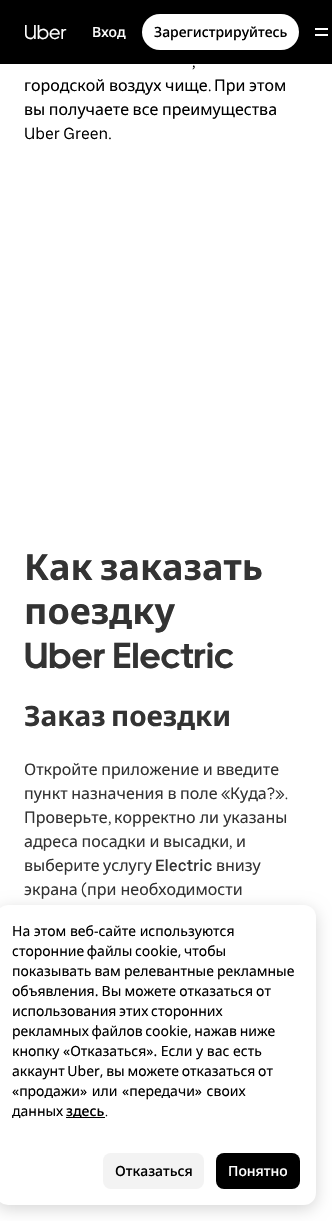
void draw(SkCanvas* canvas) {
	SkPaint fill;
	fill.setAntiAlias(true);
	auto makeFont = [&](const char* family, int weight, float size, bool italic = false) {
		SkFontStyle style(weight, SkFontStyle::kNormal_Width,
			italic ? SkFontStyle::kItalic_Slant : SkFontStyle::kUpright_Slant);
		SkFont result(fontMgr->matchFamilyStyle(family, style), size);
		result.setSubpixel(true);
		return result;
	};
	auto text = [&](const char* s, float x, float y, const SkFont& font) {
		canvas->drawString(s, x, y, font, fill);
	};
	auto spacedText = [&](const char* s, float x, float y, const SkFont& font, const SkPaint& ink, float letter, float word) {
		std::vector<SkGlyphID> glyphs(font.countText(s, strlen(s), SkTextEncoding::kUTF8));
		std::vector<float> xs(glyphs.size());
		font.textToGlyphs(s, strlen(s), SkTextEncoding::kUTF8, glyphs);
		font.getXPos(glyphs, xs, x);
		float extra = 0;
		for (size_t i = 0; i < glyphs.size(); i++) {
			xs[i] += extra;
			extra += letter + word * (glyphs[i] == font.unicharToGlyph(' '));
		}
		canvas->drawTextBlob(SkTextBlob::MakeFromPosHGlyphs(glyphs, xs, y, font), 0, 0, ink);
	};
	auto box = [&](float l, float t, float r, float b) {
		canvas->drawRect(SkRect::MakeLTRB(l, t, r, b), fill);
	};
	auto roundBox = [&](float l, float t, float r, float b, float radius) {
		canvas->drawRoundRect(SkRect::MakeLTRB(l, t, r, b), radius, radius, fill);
	};
	canvas->clear(0xFFFFFFFF);
	fill.setColor(0xFF000000);
	box(0, 0, 332, 64);
	fill.setColor(0xFFFFFFFF);
	roundBox(142, 14, 299, 50, 18);
	box(315, 28, 328, 30);
	box(315, 34, 328, 36);
	fill.setColor(0x29000000);
	fill.setMaskFilter(SkMaskFilter::MakeBlur(kNormal_SkBlurStyle, 8));
	canvas->drawRoundRect(SkRect::MakeLTRB(-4, 909, 316, 1209), 12, 12, fill);
	fill.setMaskFilter(nullptr);
	fill.setColor(0xFFFFFFFF);
	roundBox(-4, 905, 316, 1205, 12);
	fill.setColor(0xFF000000);
	box(66, 1117, 105, 1118);
	fill.setColor(0xFFF3F3F3);
	roundBox(103, 1153, 204, 1189, 8);
	fill.setColor(0xFF000000);
	roundBox(216, 1153, 300, 1189, 8);
	auto font1 = makeFont("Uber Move", 400, 20);
	fill.setColor(0xFFFFFFFF);
	text("Uber", 24, 39, font1);
	auto font2 = makeFont("Noto Sans", 500, 14);
	text("Вход", 92, 37, font2);
	fill.setColor(0xFF000000);
	text("Зарегистрируйтесь", 154, 37, font2);
	auto font3 = makeFont("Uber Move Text", 400, 16);
	text(",", 192, 67, font3);
	auto font4 = makeFont("Noto Sans", 400, 16);
	spacedText("городской воздух чище", 24, 91, font4, fill, 0, -0.5f);
	text(".", 208, 91, font3);
	spacedText("При этом", 214, 91, font4, fill, 0, -0.5f);
	spacedText("вы получаете все преимущества", 24, 115, font4, fill, 0, -0.5f);
	text("Uber Green.", 24, 139, font3);
	auto font5 = makeFont("Noto Sans", 700, 36);
	fill.setColor(0xFF333333);
	spacedText("Как заказать", 24, 580, font5, fill, 0, -2);
	text("поездку", 24, 624, font5);
	auto font6 = makeFont("Uber Move", 700, 36);
	text("Uber Electric", 24, 668, font6);
	auto font7 = makeFont("Noto Sans", 700, 28);
	spacedText("Заказ поездки", 24, 726, font7, fill, 0, -2);
	spacedText("Откройте приложение и введите", 24, 775, font4, fill, 0, -0.5f);
	spacedText("пункт назначения в поле", 24, 799, font4, fill, 0, -0.5f);
	text("«", 221, 799, font3);
	text("Куда", 230, 799, font4);
	text("?».", 267, 799, font3);
	text("Проверьте", 24, 823, font4);
	text(",", 108, 823, font3);
	text("корректно ли указаны", 114, 823, font4);
	spacedText("адреса посадки и высадки", 24, 847, font4, fill, 0, -0.5f);
	text("и", 236, 847, font4);
	text(",", 229, 847, font3);
	spacedText("выберите услугу", 24, 871, font4, fill, 0, -0.5f);
	auto font8 = makeFont("Uber Move Text", 500, 16);
	text("Electric", 155, 871, font8);
	text("внизу", 216, 871, font4);
	text("экрана", 24, 895, font4);
	text("(", 81, 895, font3);
	text("при необходимости", 87, 895, font4);
	auto font9 = makeFont("Noto Sans", 400, 14);
	fill.setColor(0xFF000000);
	text("На этом веб-сайте используются", 12, 936, font9);
	spacedText("сторонние файлы cookie, чтобы", 12, 956, font9, fill, 0, -1);
	spacedText("показывать вам релевантные рекламные", 12, 976, font9, fill, 0, -0.5f);
	spacedText("объявления. Вы можете отказаться от", 12, 996, font9, fill, 0, -0.5f);
	spacedText("использования этих сторонних", 12, 1016, font9, fill, 0, -1);
	spacedText("рекламных файлов cookie, нажав ниже", 12, 1036, font9, fill, 0, -1);
	text("кнопку «Отказаться». Если у вас есть", 12, 1056, font9);
	spacedText("аккаунт Uber, вы можете отказаться от", 12, 1076, font9, fill, 0, -1);
	spacedText("«продажи» или «передачи» своих", 12, 1096, font9, fill, 0, 1);
	text("данных", 12, 1116, font9);
	text("здесь", 66, 1116, font2);
	auto font10 = makeFont("Uber Move Text", 400, 14);
	text(".", 105, 1116, font10);
	text("Отказаться", 115, 1176, font2);
	fill.setColor(0xFFFFFFFF);
	text("Понятно", 228, 1176, font2);
}
